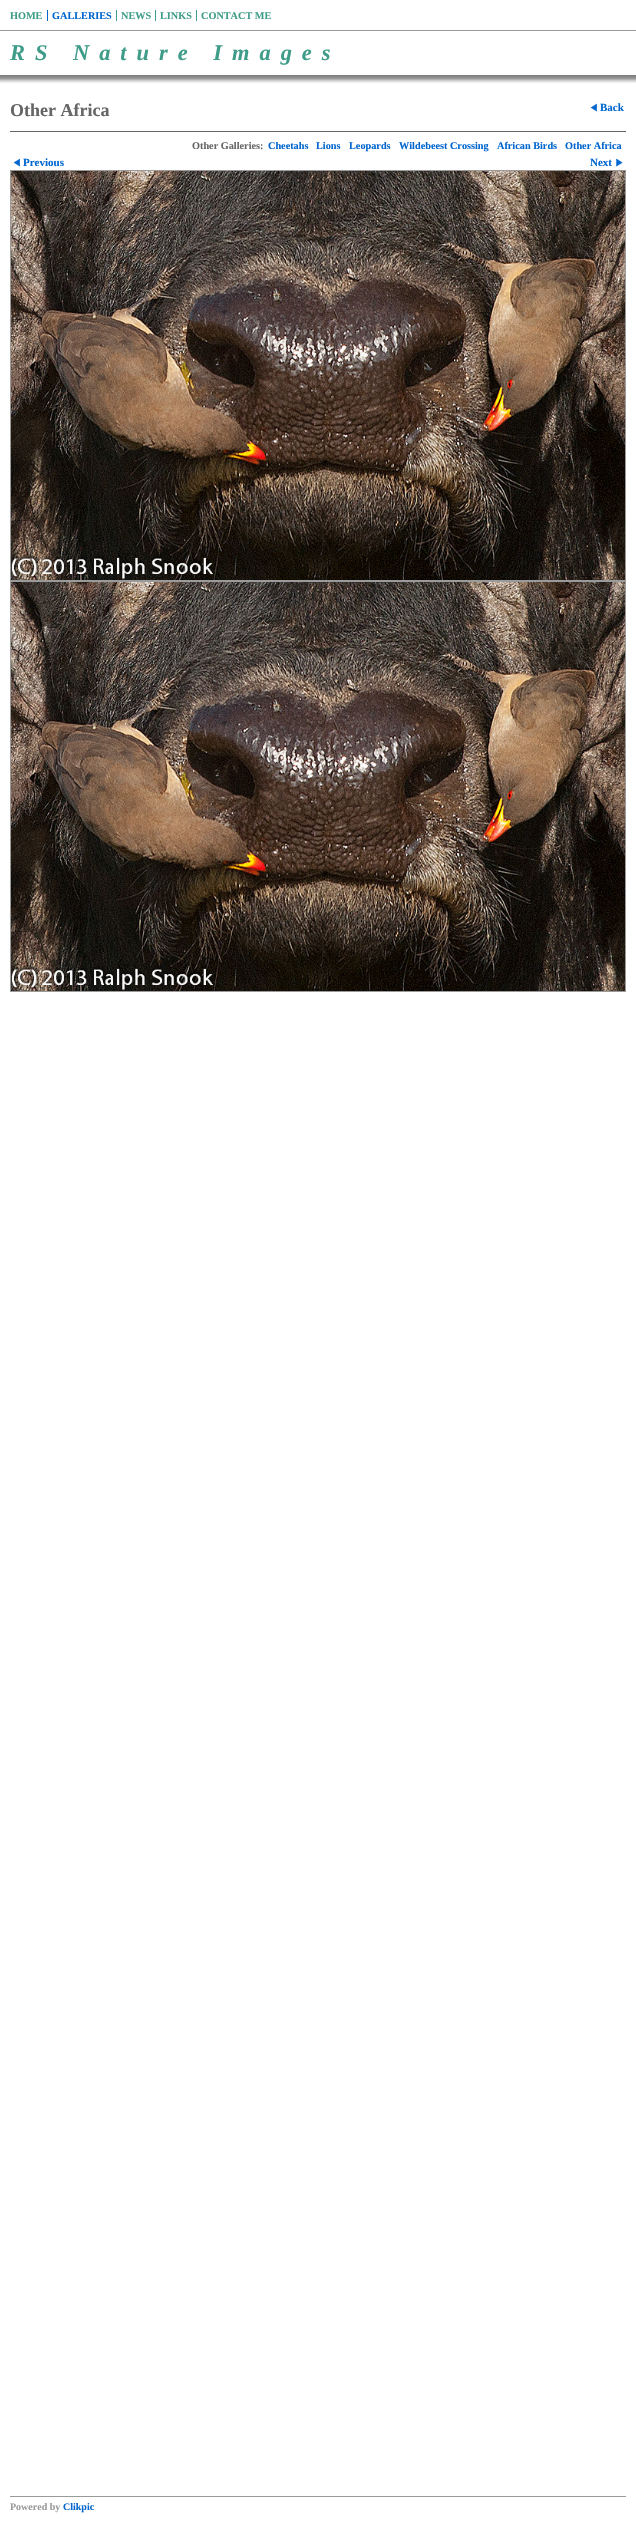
void draw(SkCanvas* canvas) {
	SkPaint fill;
	fill.setAntiAlias(true);
	auto makeFont = [&](const char* family, int weight, float size, bool italic = false) {
		SkFontStyle style(weight, SkFontStyle::kNormal_Width,
			italic ? SkFontStyle::kItalic_Slant : SkFontStyle::kUpright_Slant);
		SkFont result(fontMgr->matchFamilyStyle(family, style), size);
		result.setSubpixel(true);
		return result;
	};
	auto text = [&](const char* s, float x, float y, const SkFont& font) {
		canvas->drawString(s, x, y, font, fill);
	};
	auto spacedText = [&](const char* s, float x, float y, const SkFont& font, const SkPaint& ink, float letter, float word) {
		std::vector<SkGlyphID> glyphs(font.countText(s, strlen(s), SkTextEncoding::kUTF8));
		std::vector<float> xs(glyphs.size());
		font.textToGlyphs(s, strlen(s), SkTextEncoding::kUTF8, glyphs);
		font.getXPos(glyphs, xs, x);
		float extra = 0;
		for (size_t i = 0; i < glyphs.size(); i++) {
			xs[i] += extra;
			extra += letter + word * (glyphs[i] == font.unicharToGlyph(' '));
		}
		canvas->drawTextBlob(SkTextBlob::MakeFromPosHGlyphs(glyphs, xs, y, font), 0, 0, ink);
	};
	auto box = [&](float l, float t, float r, float b) {
		canvas->drawRect(SkRect::MakeLTRB(l, t, r, b), fill);
	};
	auto picture = [&](const char* path, float l, float t, float r, float b) {
		auto image = SkImages::DeferredFromEncodedData(SkData::MakeFromFileName(path));
		canvas->drawImageRect(image, SkRect::MakeLTRB(l, t, r, b), SkSamplingOptions());
	};
	canvas->clear(0xFFFFFFFF);
	fill.setColor(0xFF9A9A9A);
	box(0, 30, 636, 31);
	fill.setColor(0xFF0065CF);
	box(47, 10, 48, 21);
	fill.setColor(0xFF3C9C89);
	box(116, 10, 117, 21);
	box(155, 10, 156, 21);
	box(196, 10, 197, 21);
	picture("image0.png", 0, 75, 636, 83);
	fill.setColor(0xFF666666);
	box(10, 131, 626, 132);
	picture("image1.png", 590, 103, 597, 112);
	picture("image1.png", 13, 158, 20, 167);
	picture("image2.png", 616, 158, 623, 167);
	fill.setStyle(SkPaint::kStroke_Style);
	fill.setStrokeWidth(1);
	fill.setColor(0xFF9A9A9A);
	canvas->drawRect(SkRect::MakeLTRB(10.5f, 170.5f, 625.5f, 580.5f), fill);
	picture("image3.png", 11, 171, 625, 580);
	canvas->drawRect(SkRect::MakeLTRB(10.5f, 581.5f, 625.5f, 991.5f), fill);
	picture("image3.png", 11, 582, 625, 991);
	fill.setStyle(SkPaint::kFill_Style);
	box(10, 2496, 626, 2497);
	auto font1 = makeFont("Liberation Serif", 700, 10.25f);
	fill.setColor(0xFF3E9C89);
	text("HOME", 10, 19, font1);
	fill.setColor(0xFF0065CF);
	text("GALLERIES", 52, 19, font1);
	fill.setColor(0xFF3E9C89);
	text("NEWS", 121, 19, font1);
	text("LINKS", 160, 19, font1);
	text("CONTACT ME", 201, 19, font1);
	auto font2 = makeFont("Liberation Serif", 700, 22.4f, true);
	spacedText("RS Nature Images", 10, 60, font2, fill, 10, 0);
	auto font3 = makeFont("Liberation Serif", 700, 18);
	fill.setColor(0xFF666666);
	text("Other Africa", 10, 116, font3);
	auto font4 = makeFont("Liberation Serif", 700, 11);
	fill.setColor(0xFF0065CF);
	text("Back", 600, 111, font4);
	fill.setColor(0xFF666666);
	text("Other Galleries:", 192, 149, font1);
	fill.setColor(0xFF0065CF);
	text("Cheetahs", 268, 149, font1);
	text("Lions", 316, 149, font1);
	text("Leopards", 349, 149, font1);
	text("Wildebeest Crossing", 399, 149, font1);
	text("African Birds", 497, 149, font1);
	text("Other Africa", 565, 149, font1);
	text("Previous", 23, 166, font4);
	text("Next", 590, 166, font4);
	auto font5 = makeFont("Liberation Serif", 700, 10);
	fill.setColor(0xFF9A9A9A);
	text("Powered by", 10, 2510, font5);
	fill.setColor(0xFF0065CF);
	text("Clikpic", 63, 2510, font5);
}
